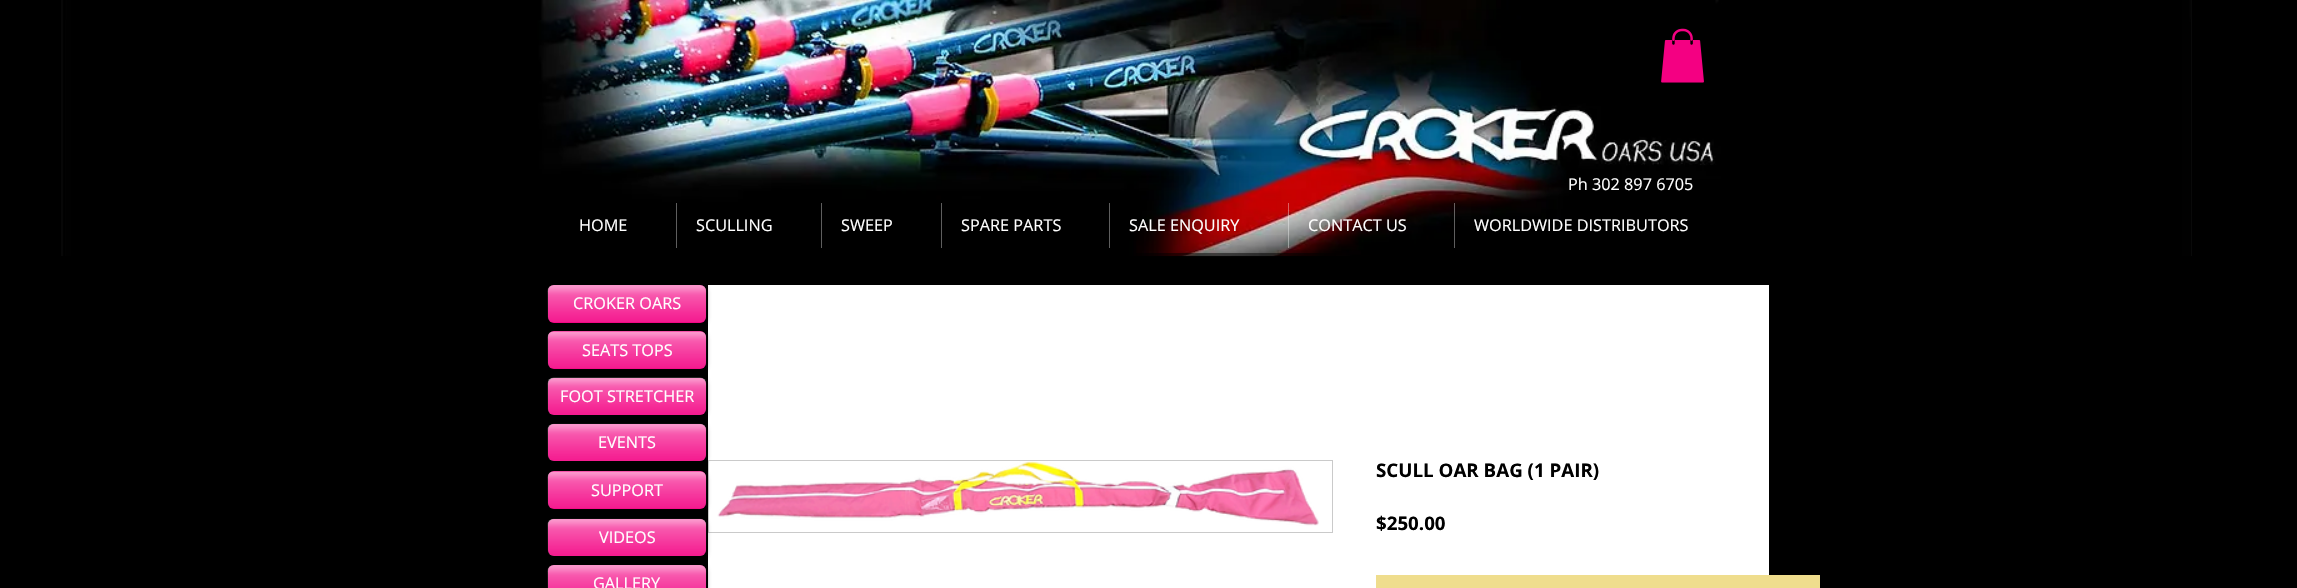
void draw(SkCanvas* canvas) {
	SkPaint fill;
	fill.setAntiAlias(true);
	auto makeFont = [&](const char* family, int weight, float size, bool italic = false) {
		SkFontStyle style(weight, SkFontStyle::kNormal_Width,
			italic ? SkFontStyle::kItalic_Slant : SkFontStyle::kUpright_Slant);
		SkFont result(fontMgr->matchFamilyStyle(family, style), size);
		result.setSubpixel(true);
		return result;
	};
	auto text = [&](const char* s, float x, float y, const SkFont& font) {
		canvas->drawString(s, x, y, font, fill);
	};
	auto box = [&](float l, float t, float r, float b) {
		canvas->drawRect(SkRect::MakeLTRB(l, t, r, b), fill);
	};
	auto roundBox = [&](float l, float t, float r, float b, float radius) {
		canvas->drawRoundRect(SkRect::MakeLTRB(l, t, r, b), radius, radius, fill);
	};
	auto picture = [&](const char* path, float l, float t, float r, float b) {
		auto image = SkImages::DeferredFromEncodedData(SkData::MakeFromFileName(path));
		canvas->drawImageRect(image, SkRect::MakeLTRB(l, t, r, b), SkSamplingOptions());
	};
	canvas->clear(0xFF000000);
	picture("image6.png", 61, 0, 2192, 257);
	picture("image0.png", 1661, 28, 1704, 83);
	fill.setColor(0xFFFFFFFF);
	box(708, 285, 1769, 588);
	fill.setColor(0x99000000);
	fill.setMaskFilter(SkMaskFilter::MakeBlur(kNormal_SkBlurStyle, 2.5f));
	canvas->drawRoundRect(SkRect::MakeLTRB(548, 286, 706, 324), 6, 6, fill);
	fill.setMaskFilter(nullptr);
	fill.setColor(0xFFF40082);
	roundBox(548, 285, 706, 323, 6);
	picture("image1.png", 547, 285, 707, 323);
	fill.setStyle(SkPaint::kStroke_Style);
	fill.setStrokeWidth(1);
	fill.setColor(0xFFCACACA);
	canvas->drawRect(SkRect::MakeLTRB(708.5f, 460.5f, 1332.5f, 532.5f), fill);
	fill.setStyle(SkPaint::kFill_Style);
	fill.setColor(0x99000000);
	fill.setMaskFilter(SkMaskFilter::MakeBlur(kNormal_SkBlurStyle, 2.5f));
	canvas->drawRoundRect(SkRect::MakeLTRB(548, 425, 706, 463), 6, 6, fill);
	fill.setMaskFilter(nullptr);
	fill.setColor(0xFFF40082);
	roundBox(548, 424, 706, 461, 6);
	picture("image4.png", 547, 423, 707, 461);
	fill.setColor(0x99000000);
	fill.setMaskFilter(SkMaskFilter::MakeBlur(kNormal_SkBlurStyle, 2.5f));
	canvas->drawRoundRect(SkRect::MakeLTRB(548, 379, 706, 416), 6, 6, fill);
	fill.setMaskFilter(nullptr);
	fill.setColor(0xFFF40082);
	roundBox(548, 378, 706, 415, 6);
	picture("image3.png", 547, 377, 707, 415);
	fill.setColor(0x99000000);
	fill.setMaskFilter(SkMaskFilter::MakeBlur(kNormal_SkBlurStyle, 2.5f));
	canvas->drawRoundRect(SkRect::MakeLTRB(548, 333, 706, 370), 6, 6, fill);
	fill.setMaskFilter(nullptr);
	fill.setColor(0xFFF40082);
	roundBox(548, 331, 706, 369, 6);
	picture("image2.png", 547, 331, 707, 369);
	fill.setColor(0x99000000);
	fill.setMaskFilter(SkMaskFilter::MakeBlur(kNormal_SkBlurStyle, 2.5f));
	canvas->drawRoundRect(SkRect::MakeLTRB(548, 473, 706, 510), 6, 6, fill);
	fill.setMaskFilter(nullptr);
	fill.setColor(0xFFF40082);
	roundBox(548, 471, 706, 509, 6);
	picture("image2.png", 547, 471, 707, 509);
	fill.setColor(0x99000000);
	fill.setMaskFilter(SkMaskFilter::MakeBlur(kNormal_SkBlurStyle, 2.5f));
	canvas->drawRoundRect(SkRect::MakeLTRB(548, 566, 706, 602), 6, 6, fill);
	fill.setMaskFilter(nullptr);
	fill.setColor(0xFFF40082);
	roundBox(548, 565, 706, 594, 6);
	picture("image5.png", 547, 565, 707, 588);
	fill.setColor(0x99000000);
	fill.setMaskFilter(SkMaskFilter::MakeBlur(kNormal_SkBlurStyle, 2.5f));
	canvas->drawRoundRect(SkRect::MakeLTRB(548, 520, 706, 558), 6, 6, fill);
	fill.setMaskFilter(nullptr);
	fill.setColor(0xFFF40082);
	roundBox(548, 519, 706, 556, 6);
	picture("image4.png", 547, 518, 707, 556);
	fill.setColor(0xFF5E5E5E);
	box(676, 203, 677, 248);
	box(821, 203, 822, 248);
	box(941, 203, 942, 248);
	box(1109, 203, 1110, 248);
	fill.setColor(0x5EFFFFFF);
	box(1288, 203, 1289, 248);
	box(1454, 203, 1455, 248);
	fill.setColor(0x80000000);
	box(1136, 253, 1336, 257);
	picture("image7.png", 717, 461, 1319, 526);
	fill.setColor(0xFFEFDD8D);
	box(1376, 575, 1820, 588);
	auto font1 = makeFont("Open Sans", 400, 16.25f);
	fill.setColor(0xFFFFFFFF);
	text("Ph 302 897 6705", 1568, 190, font1);
	text("CROKER OARS", 573, 309, font1);
	text("SEATS TOPS", 582, 356, font1);
	text("FOOT STRETCHER", 560, 402, font1);
	text("EVENTS", 598, 448, font1);
	text("SUPPORT", 591, 496, font1);
	text("VIDEOS", 599, 543, font1);
	text("GALLERY", 593, 589, font1);
	text("HOME", 579, 231, font1);
	text("SCULLING", 696, 231, font1);
	text("SWEEP", 841, 231, font1);
	text("SPARE PARTS", 961, 231, font1);
	text("SALE ENQUIRY", 1129, 231, font1);
	text("CONTACT US", 1308, 231, font1);
	text("WORLDWIDE DISTRIBUTORS", 1474, 231, font1);
	auto font2 = makeFont("Open Sans", 700, 18.75f);
	fill.setColor(0xFF000000);
	text("SCULL OAR BAG (1 PAIR)", 1376, 477, font2);
	text("$250.00", 1376, 530, font2);
}
